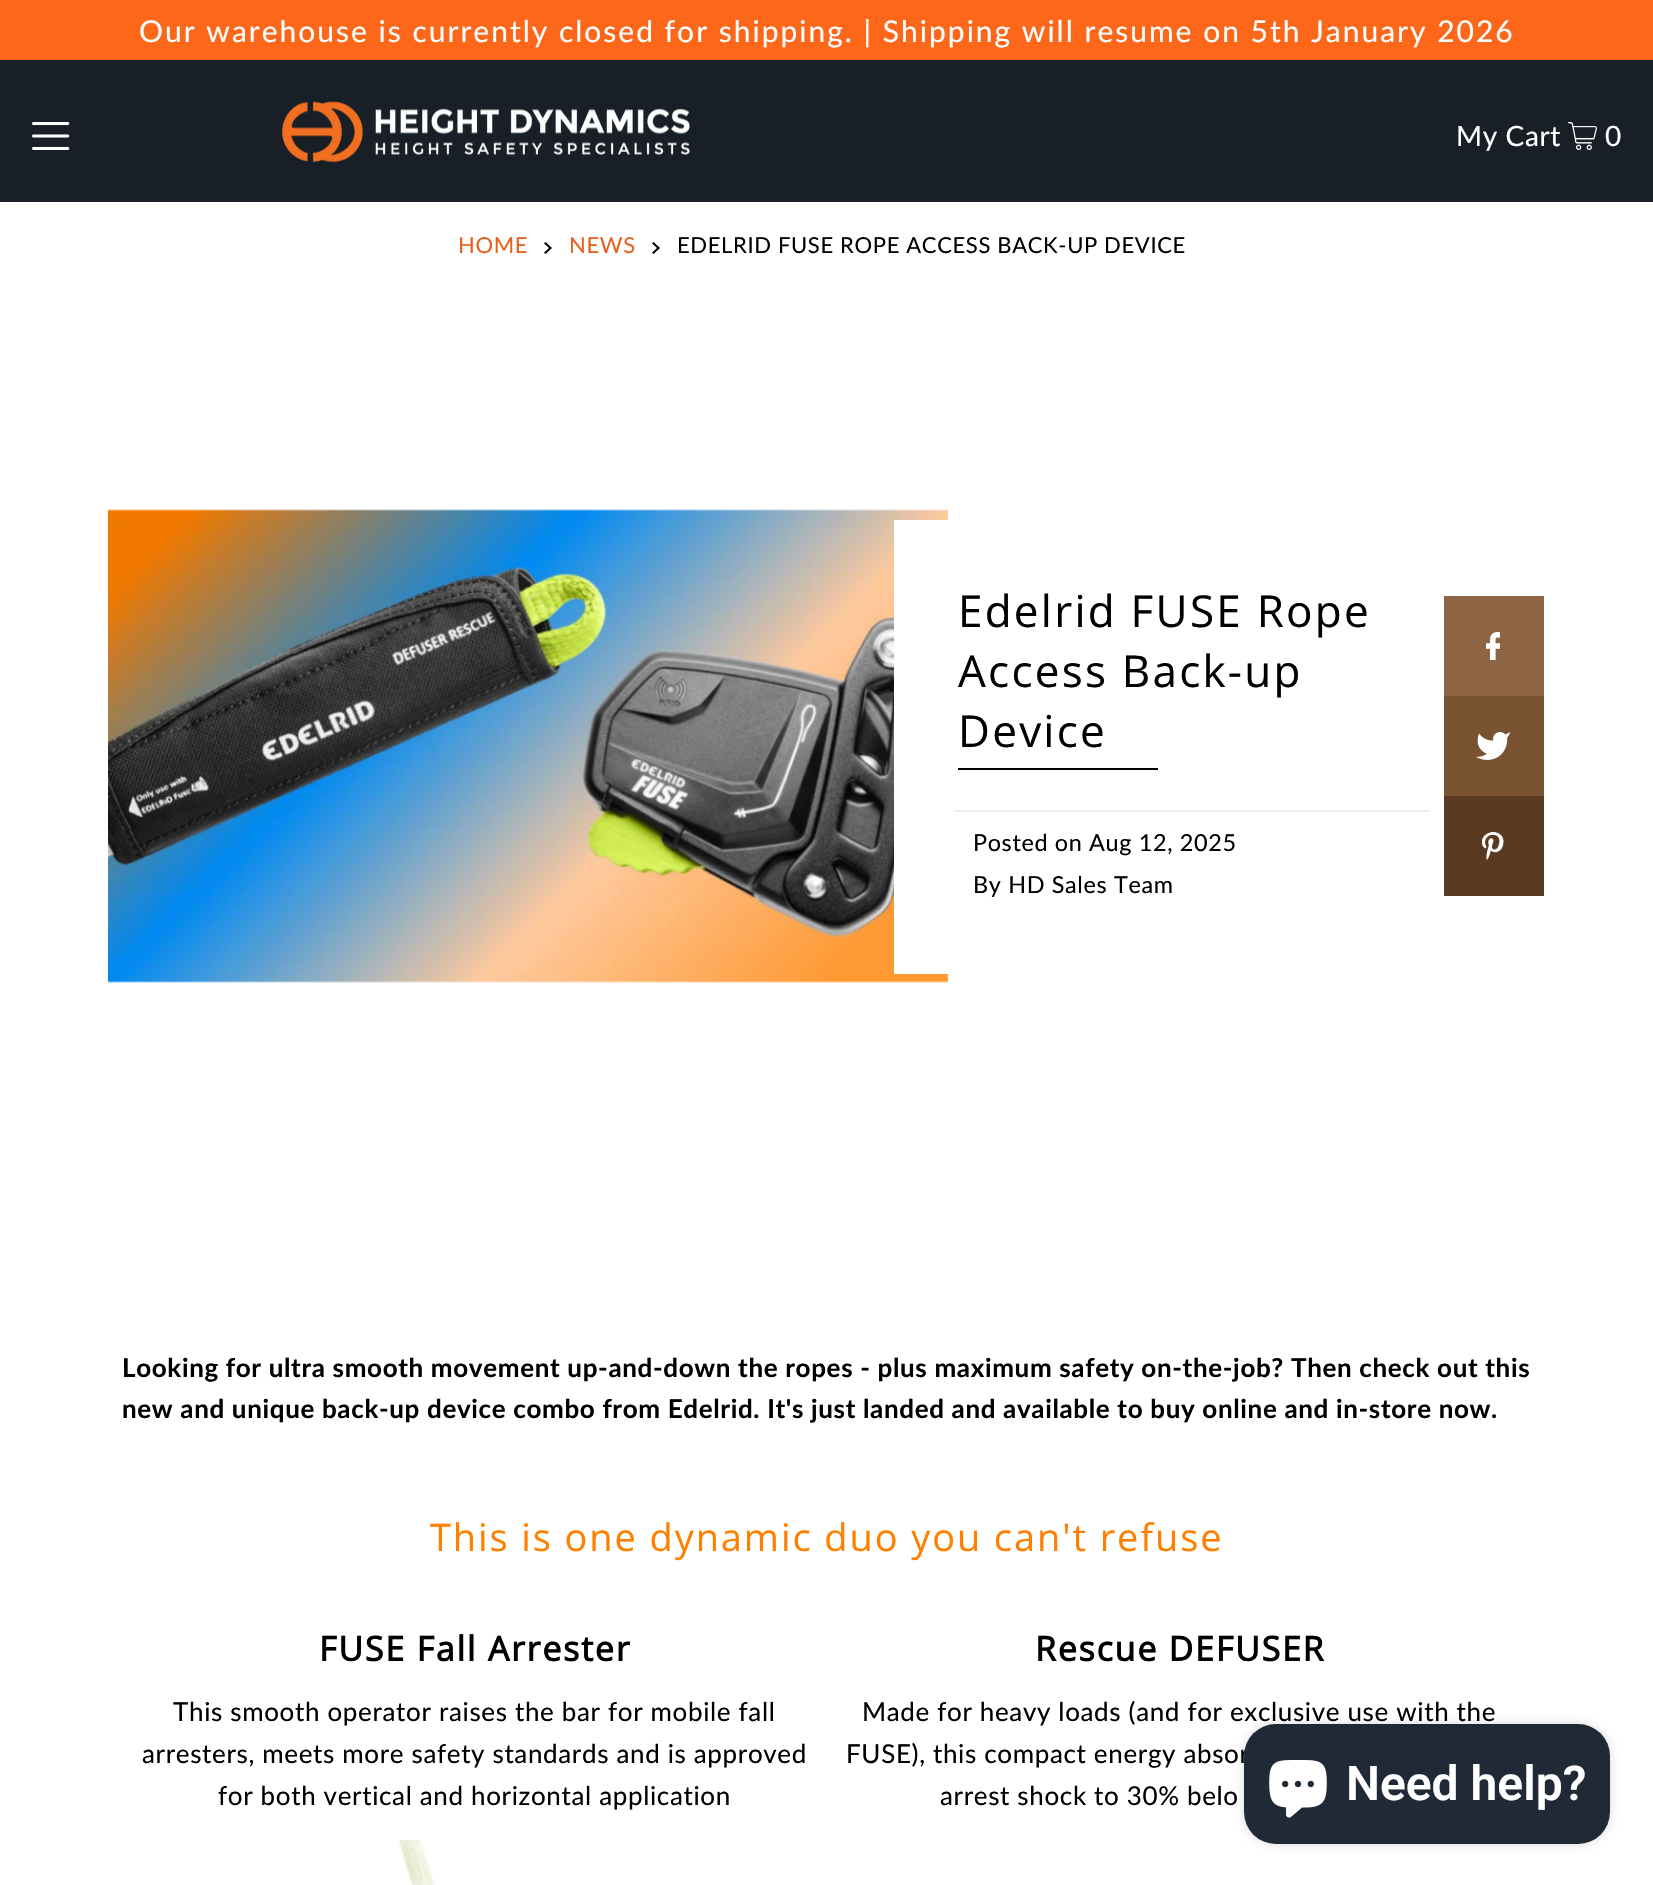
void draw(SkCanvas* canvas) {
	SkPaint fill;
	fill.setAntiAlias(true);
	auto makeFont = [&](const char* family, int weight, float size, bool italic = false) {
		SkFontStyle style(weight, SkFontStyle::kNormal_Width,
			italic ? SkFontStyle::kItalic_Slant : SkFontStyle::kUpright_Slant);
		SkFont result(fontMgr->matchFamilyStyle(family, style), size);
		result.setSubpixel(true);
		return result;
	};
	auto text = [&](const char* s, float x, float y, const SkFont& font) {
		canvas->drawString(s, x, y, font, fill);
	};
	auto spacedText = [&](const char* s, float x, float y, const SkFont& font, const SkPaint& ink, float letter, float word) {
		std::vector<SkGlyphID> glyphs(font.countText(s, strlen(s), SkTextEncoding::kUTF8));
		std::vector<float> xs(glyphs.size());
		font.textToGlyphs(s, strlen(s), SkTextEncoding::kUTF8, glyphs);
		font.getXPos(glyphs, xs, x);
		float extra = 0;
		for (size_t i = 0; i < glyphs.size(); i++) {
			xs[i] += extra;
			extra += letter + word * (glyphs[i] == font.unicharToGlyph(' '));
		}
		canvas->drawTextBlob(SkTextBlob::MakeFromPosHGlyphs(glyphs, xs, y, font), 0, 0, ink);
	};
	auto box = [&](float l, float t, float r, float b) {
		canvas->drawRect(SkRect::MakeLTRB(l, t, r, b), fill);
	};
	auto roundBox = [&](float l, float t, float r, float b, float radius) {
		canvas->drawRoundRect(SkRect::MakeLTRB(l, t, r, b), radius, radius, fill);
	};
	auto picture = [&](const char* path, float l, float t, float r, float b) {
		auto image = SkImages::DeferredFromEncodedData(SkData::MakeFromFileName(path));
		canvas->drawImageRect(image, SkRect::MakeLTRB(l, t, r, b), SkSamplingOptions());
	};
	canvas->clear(0xFFFFFFFF);
	fill.setColor(0xFFFC6719);
	box(0, 0, 1653, 60);
	fill.setColor(0xFF181F26);
	box(0, 60, 1653, 202);
	picture("image0.png", 32, 122, 70, 150);
	picture("image1.png", 282, 101, 690, 163);
	picture("image2.png", 1568, 122, 1597, 150);
	picture("image3.png", 544, 242, 552, 254);
	picture("image3.png", 652, 242, 660, 254);
	picture("image4.png", 108, 509, 948, 983);
	fill.setColor(0xFFFFFFFF);
	box(894, 520, 948, 974);
	fill.setColor(0xFF000000);
	box(958, 768, 1158, 770);
	fill.setColor(0xFFEEEEEE);
	box(954, 810, 1430, 812);
	fill.setColor(0xFF8D6544);
	box(1444, 596, 1544, 696);
	picture("image5.png", 1486, 632, 1500, 660);
	fill.setColor(0xFF795232);
	box(1444, 696, 1544, 796);
	picture("image6.png", 1476, 732, 1510, 760);
	fill.setColor(0xFF5A3B21);
	box(1444, 796, 1544, 896);
	picture("image7.png", 1482, 832, 1504, 860);
	picture("image8.png", 398, 1840, 435, 1885);
	fill.setColor(0x26000000);
	fill.setMaskFilter(SkMaskFilter::MakeBlur(kNormal_SkBlurStyle, 5));
	canvas->drawRoundRect(SkRect::MakeLTRB(1244, 1724, 1610, 1844), 32, 32, fill);
	fill.setMaskFilter(nullptr);
	auto font1 = makeFont("Lato", 400, 30);
	fill.setColor(0xFFFFFFFF);
	spacedText("Our warehouse is currently closed for shipping. | Shipping will resume on 5th January 2026", 139, 42, font1, fill, 2, 0);
	auto font2 = makeFont("Lato", 400, 28);
	spacedText("My Cart", 1456, 146, font2, fill, 0.65f, 0);
	spacedText("0", 1605, 146, font2, fill, 0.65f, 0);
	auto font3 = makeFont("Lato", 400, 22);
	fill.setColor(0xFFE6611C);
	spacedText("HOME", 458, 253, font3, fill, 0.65f, 0);
	spacedText("NEWS", 569, 253, font3, fill, 0.65f, 0);
	fill.setColor(0xFF000000);
	spacedText("EDELRID FUSE ROPE ACCESS BACK-UP DEVICE", 677, 253, font3, fill, 0.65f, 0);
	auto font4 = makeFont("Open Sans", 400, 44);
	spacedText("Edelrid FUSE Rope", 958, 627, font4, fill, 2.25f, 0);
	spacedText("Access Back-up", 958, 687, font4, fill, 2.25f, 0);
	spacedText("Device", 958, 747, font4, fill, 2.25f, 0);
	auto font5 = makeFont("Lato", 400, 23.4f);
	spacedText("Posted on Aug 12, 2025", 973, 851, font5, fill, 0.65f, 0);
	spacedText("By HD Sales Team", 973, 893, font5, fill, 0.65f, 0);
	auto font6 = makeFont("Lato", 700, 26);
	spacedText("Looking for ultra smooth movement up-and-down the ropes - plus maximum safety on-the-job? Then check out this", 122, 1377, font6, fill, 0.65f, 0);
	spacedText("new and unique back-up device combo from Edelrid. It's just landed and available to buy online and in-store now.", 122, 1418, font6, fill, 0.65f, 0);
	auto font7 = makeFont("Open Sans", 400, 38);
	fill.setColor(0xFFFF8000);
	spacedText("This is one dynamic duo you can't refuse", 430, 1551, font7, fill, 1.9f, 0);
	auto font8 = makeFont("Open Sans", 700, 34);
	fill.setColor(0xFF000000);
	spacedText("FUSE Fall Arrester", 319, 1661, font8, fill, 1.75f, 0);
	auto font9 = makeFont("Lato", 400, 26);
	spacedText("This smooth operator raises the bar for mobile fall", 173, 1721, font9, fill, 0.65f, 0);
	spacedText("arresters, meets more safety standards and is approved", 142, 1763, font9, fill, 0.65f, 0);
	spacedText("for both vertical and horizontal application", 218, 1805, font9, fill, 0.65f, 0);
	spacedText("Rescue DEFUSER", 1035, 1661, font8, fill, 1.75f, 0);
	spacedText("Made for heavy loads (and for exclusive use with the", 862, 1721, font9, fill, 0.65f, 0);
	spacedText("FUSE), this compact energy absor", 846, 1763, font9, fill, 0.65f, 0);
	spacedText("arrest shock to 30% belo", 940, 1805, font9, fill, 0.65f, 0);
	fill.setColor(0xFF202A36);
	roundBox(1244, 1724, 1610, 1844, 32);
	picture("image9.png", 1269, 1760, 1327, 1818);
	auto font10 = makeFont("Roboto", 600, 48);
	fill.setColor(0xFFFFFFFF);
	text("Need help?", 1346, 1800, font10);
}
